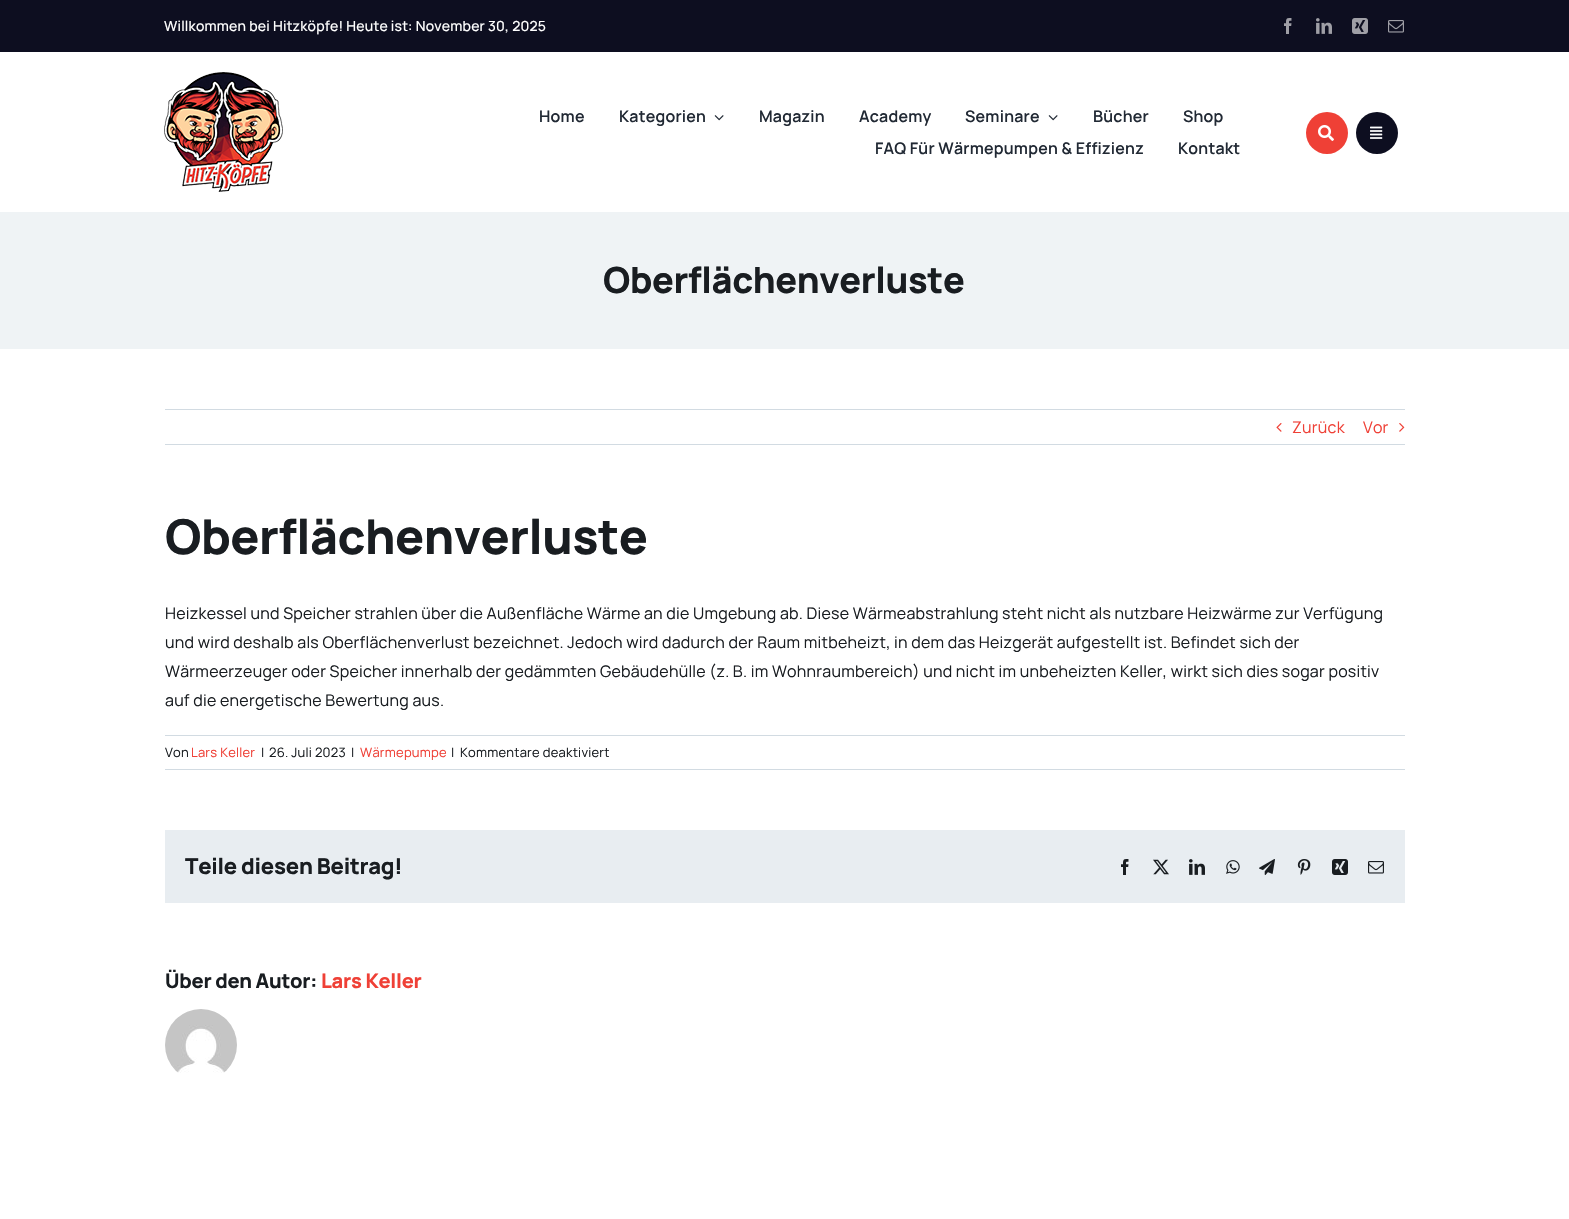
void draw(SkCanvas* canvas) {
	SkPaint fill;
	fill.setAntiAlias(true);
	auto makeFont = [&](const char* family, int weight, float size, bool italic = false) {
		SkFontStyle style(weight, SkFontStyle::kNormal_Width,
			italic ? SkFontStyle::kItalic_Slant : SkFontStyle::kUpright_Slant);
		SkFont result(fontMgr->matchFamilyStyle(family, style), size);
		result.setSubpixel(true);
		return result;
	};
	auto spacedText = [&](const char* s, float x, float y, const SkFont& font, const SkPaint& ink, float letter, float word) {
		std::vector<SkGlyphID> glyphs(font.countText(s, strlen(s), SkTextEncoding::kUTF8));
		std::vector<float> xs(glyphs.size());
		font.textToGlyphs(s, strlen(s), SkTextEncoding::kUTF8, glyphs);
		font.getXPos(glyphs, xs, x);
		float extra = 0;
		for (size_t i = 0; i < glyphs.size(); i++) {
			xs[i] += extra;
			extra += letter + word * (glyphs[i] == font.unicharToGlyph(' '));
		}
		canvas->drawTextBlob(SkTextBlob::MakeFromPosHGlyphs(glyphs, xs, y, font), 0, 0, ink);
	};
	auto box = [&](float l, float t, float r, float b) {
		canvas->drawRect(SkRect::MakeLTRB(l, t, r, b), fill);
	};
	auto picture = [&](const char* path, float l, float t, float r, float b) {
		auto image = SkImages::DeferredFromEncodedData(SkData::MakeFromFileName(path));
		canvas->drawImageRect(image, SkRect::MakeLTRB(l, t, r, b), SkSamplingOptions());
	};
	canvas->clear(0xFFFFFFFF);
	fill.setColor(0xFF0D0E20);
	box(0, 0, 1569, 52);
	picture("image0.png", 1284, 18, 1292, 34);
	picture("image1.png", 1316, 18, 1332, 34);
	picture("image2.png", 1352, 18, 1368, 34);
	picture("image3.png", 1388, 20, 1404, 33);
	picture("image4.png", 164, 72, 283, 192);
	picture("image5.png", 714, 115, 724, 121);
	picture("image5.png", 1048, 115, 1058, 121);
	fill.setColor(0xFFEF4036);
	canvas->drawCircle(1327, 133, 21, fill);
	picture("image6.png", 1318, 125, 1334, 141);
	fill.setColor(0xFF0D0E20);
	canvas->drawCircle(1377, 133, 21, fill);
	picture("image7.png", 1370, 126, 1383, 139);
	fill.setColor(0xFFEFF3F5);
	box(0, 212, 1569, 349);
	fill.setColor(0xFFD2DBE2);
	box(165, 409, 1405, 410);
	box(165, 444, 1405, 445);
	picture("image8.png", 1276, 423, 1282, 432);
	picture("image9.png", 1399, 423, 1405, 432);
	box(165, 735, 1405, 736);
	box(165, 769, 1405, 770);
	fill.setColor(0xFFE8EDF1);
	box(165, 830, 1405, 903);
	picture("image10.png", 1121, 859, 1129, 875);
	picture("image11.png", 1153, 859, 1169, 875);
	picture("image12.png", 1189, 859, 1205, 875);
	picture("image13.png", 1226, 860, 1240, 874);
	picture("image14.png", 1259, 859, 1275, 875);
	picture("image15.png", 1297, 859, 1311, 875);
	picture("image16.png", 1332, 859, 1348, 875);
	picture("image17.png", 1368, 861, 1384, 874);
	picture("image18.png", 165, 1009, 237, 1073);
	auto font1 = makeFont("Manrope", 500, 14);
	fill.setColor(0xFFFFFFFF);
	spacedText("Willkommen bei Hitzköpfe! Heute ist: November 30, 2025", 164, 31, font1, fill, 0.2f, 0);
	auto font2 = makeFont("Manrope", 600, 16);
	fill.setColor(0xFF212934);
	spacedText("Home", 539, 122, font2, fill, 0.24f, 0);
	spacedText("Kategorien", 619, 122, font2, fill, 0.24f, 0);
	spacedText("Magazin", 759, 122, font2, fill, 0.24f, 0);
	spacedText("Academy", 859, 122, font2, fill, 0.24f, 0);
	spacedText("Seminare", 965, 122, font2, fill, 0.24f, 0);
	spacedText("Bücher", 1093, 122, font2, fill, 0.24f, 0);
	spacedText("Shop", 1183, 122, font2, fill, 0.24f, 0);
	spacedText("FAQ Für Wärmepumpen & Effizienz", 875, 154, font2, fill, 0.24f, 0);
	spacedText("Kontakt", 1178, 154, font2, fill, 0.24f, 0);
	auto font3 = makeFont("Manrope", 800, 36);
	fill.setColor(0xFF191D21);
	spacedText("Oberflächenverluste", 603, 293, font3, fill, -0.4f, 0);
	auto font4 = makeFont("Manrope", 400, 16);
	fill.setColor(0xFFEF4036);
	spacedText("Zurück", 1292, 433, font4, fill, 0.24f, 0);
	spacedText("Vor", 1363, 433, font4, fill, 0.24f, 0);
	auto font5 = makeFont("Manrope", 800, 48);
	fill.setColor(0xFF191D21);
	spacedText("Oberflächenverluste", 165, 554, font5, fill, -0.5f, 0);
	spacedText("Heizkessel und Speicher strahlen über die Außenfläche Wärme an die Umgebung ab. Diese Wärmeabstrahlung steht nicht als nutzbare Heizwärme zur Verfügung", 165, 619, font4, fill, 0.24f, 0);
	spacedText("und wird deshalb als Oberflächenverlust bezeichnet. Jedoch wird dadurch der Raum mitbeheizt, in dem das Heizgerät aufgestellt ist. Befindet sich der", 165, 648, font4, fill, 0.24f, 0);
	spacedText("Wärmeerzeuger oder Speicher innerhalb der gedämmten Gebäudehülle (z. B. im Wohnraumbereich) und nicht im unbeheizten Keller, wirkt sich dies sogar positiv", 165, 677, font4, fill, 0.24f, 0);
	spacedText("auf die energetische Bewertung aus.", 165, 706, font4, fill, 0.24f, 0);
	auto font6 = makeFont("Manrope", 400, 13);
	spacedText("Von", 165, 757, font6, fill, 0.24f, 0);
	fill.setColor(0xFFEF4036);
	spacedText("Lars Keller", 191, 757, font6, fill, 0.24f, 0);
	fill.setColor(0xFF191D21);
	spacedText("|", 261, 757, font6, fill, 0.24f, 0);
	spacedText("26. Juli 2023", 269, 757, font6, fill, 0.24f, 0);
	spacedText("|", 351, 757, font6, fill, 0.24f, 0);
	fill.setColor(0xFFEF4036);
	spacedText("Wärmepumpe", 360, 757, font6, fill, 0.24f, 0);
	fill.setColor(0xFF191D21);
	spacedText("|", 451, 757, font6, fill, 0.24f, 0);
	spacedText("Kommentare deaktiviert", 460, 757, font6, fill, 0.24f, 0);
	auto font7 = makeFont("Manrope", 800, 22);
	spacedText("Teile diesen Beitrag!", 185, 874, font7, fill, -0.25f, 0);
	auto font8 = makeFont("Manrope", 800, 20);
	spacedText("Über den Autor:", 165, 988, font8, fill, -0.25f, 0);
	fill.setColor(0xFFEF4036);
	spacedText("Lars Keller", 321, 988, font8, fill, -0.25f, 0);
}
